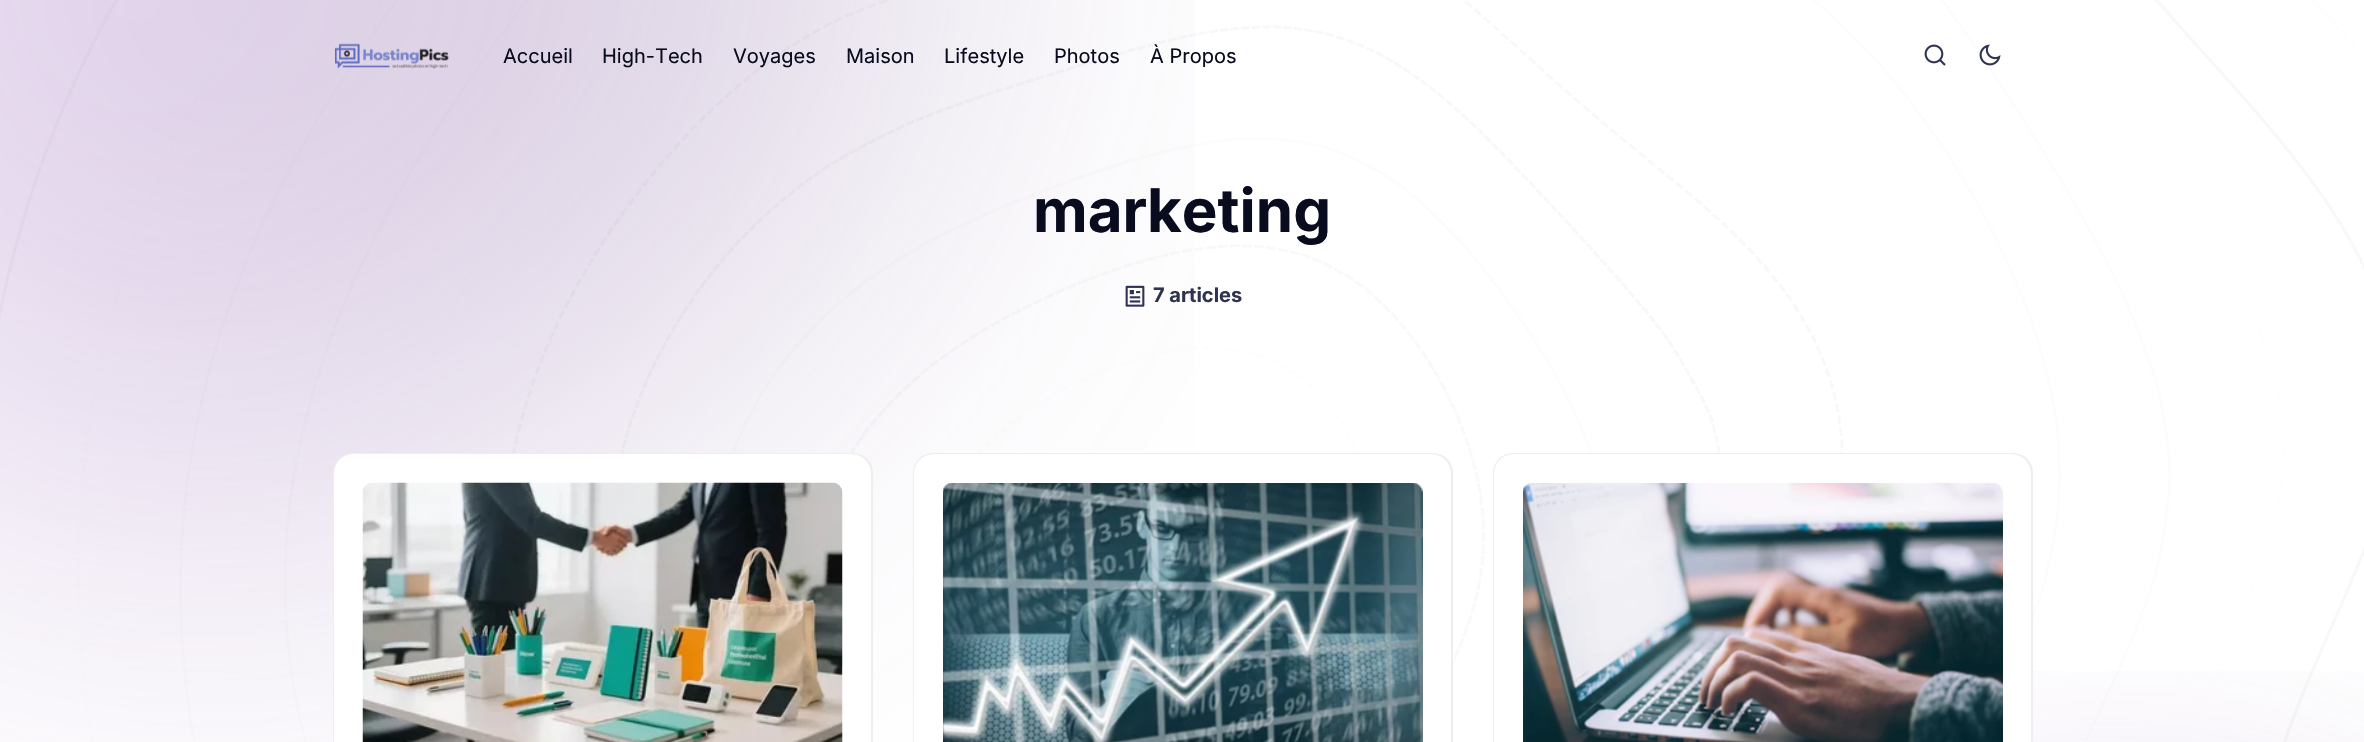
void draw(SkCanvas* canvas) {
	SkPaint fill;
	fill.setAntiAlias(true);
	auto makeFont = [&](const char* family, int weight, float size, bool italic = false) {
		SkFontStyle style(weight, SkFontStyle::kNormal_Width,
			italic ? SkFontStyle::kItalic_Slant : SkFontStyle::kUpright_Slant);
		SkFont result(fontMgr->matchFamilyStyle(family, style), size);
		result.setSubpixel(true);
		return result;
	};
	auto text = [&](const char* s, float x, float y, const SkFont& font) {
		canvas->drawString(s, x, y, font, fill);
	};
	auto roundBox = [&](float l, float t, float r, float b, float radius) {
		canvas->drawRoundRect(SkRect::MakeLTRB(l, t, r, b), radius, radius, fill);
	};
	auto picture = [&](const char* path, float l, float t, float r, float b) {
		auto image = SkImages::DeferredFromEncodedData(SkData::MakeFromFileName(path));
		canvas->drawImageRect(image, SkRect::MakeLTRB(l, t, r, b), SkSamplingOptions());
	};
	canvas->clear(0xFFFFFFFF);
	picture("image0.png", 0, 0, 2364, 742);
	picture("image1.png", 0, 0, 1195, 742);
	picture("image2.png", 2033, 671, 2364, 742);
	picture("image3.png", 335, 43, 449, 69);
	picture("image4.png", 1924, 44, 1946, 66);
	picture("image5.png", 1979, 44, 2001, 66);
	picture("image6.png", 1125, 285, 1145, 307);
	fill.setColor(0xFFEEEEEE);
	roundBox(333, 453, 873, 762, 20);
	fill.setColor(0xFFFFFFFF);
	roundBox(334, 454, 871, 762, 20);
	picture("image7.png", 362, 482, 843, 742);
	fill.setColor(0xFFEEEEEE);
	roundBox(913, 453, 1453, 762, 20);
	fill.setColor(0xFFFFFFFF);
	roundBox(914, 454, 1451, 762, 20);
	picture("image8.png", 943, 483, 1423, 742);
	fill.setColor(0xFFEEEEEE);
	roundBox(1493, 453, 2033, 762, 20);
	fill.setColor(0xFFFFFFFF);
	roundBox(1494, 454, 2031, 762, 20);
	picture("image9.png", 1523, 483, 2003, 742);
	auto font1 = makeFont("Inter", 400, 20);
	fill.setColor(0xFF090C1E);
	text("Accueil", 503, 63, font1);
	text("High-Tech", 602, 63, font1);
	text("Voyages", 733, 63, font1);
	text("Maison", 846, 63, font1);
	text("Lifestyle", 944, 63, font1);
	text("Photos", 1054, 63, font1);
	text("À Propos", 1150, 63, font1);
	auto font2 = makeFont("Inter", 700, 60);
	text("marketing", 1033, 232, font2);
	auto font3 = makeFont("Inter", 700, 20);
	fill.setColor(0xFF2D3350);
	text("7 articles", 1153, 302, font3);
}
